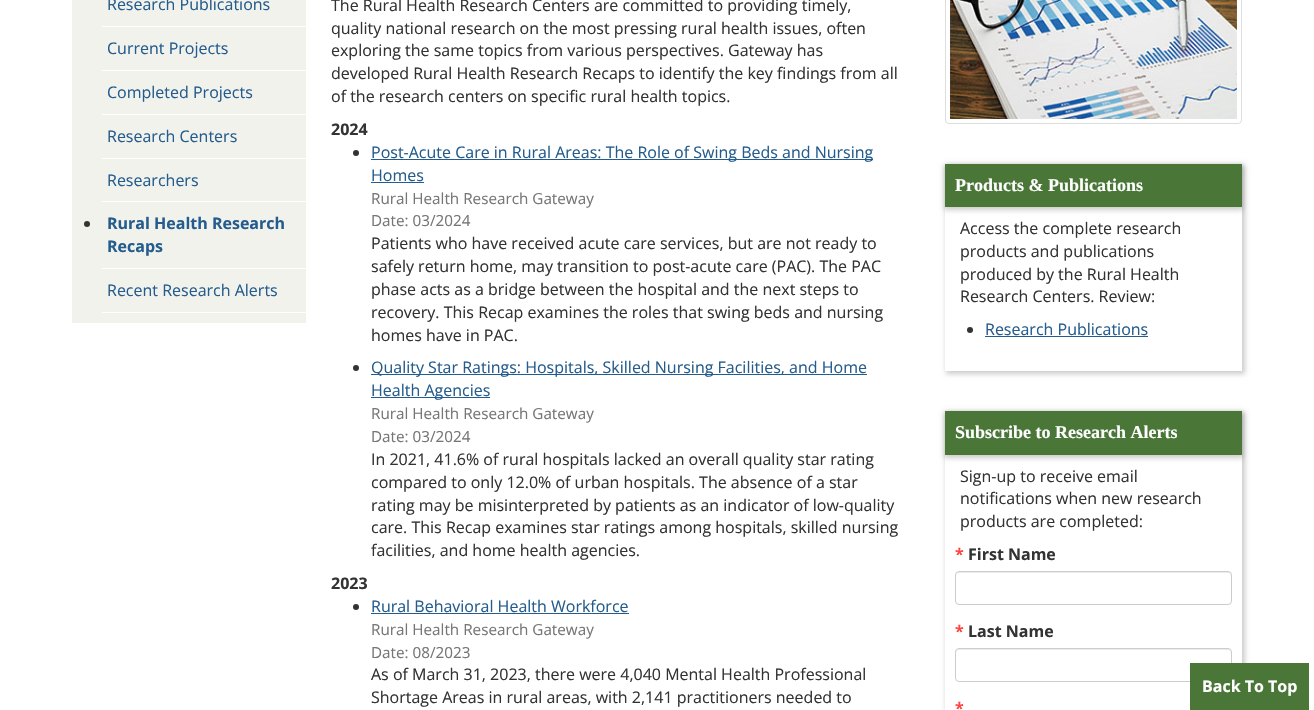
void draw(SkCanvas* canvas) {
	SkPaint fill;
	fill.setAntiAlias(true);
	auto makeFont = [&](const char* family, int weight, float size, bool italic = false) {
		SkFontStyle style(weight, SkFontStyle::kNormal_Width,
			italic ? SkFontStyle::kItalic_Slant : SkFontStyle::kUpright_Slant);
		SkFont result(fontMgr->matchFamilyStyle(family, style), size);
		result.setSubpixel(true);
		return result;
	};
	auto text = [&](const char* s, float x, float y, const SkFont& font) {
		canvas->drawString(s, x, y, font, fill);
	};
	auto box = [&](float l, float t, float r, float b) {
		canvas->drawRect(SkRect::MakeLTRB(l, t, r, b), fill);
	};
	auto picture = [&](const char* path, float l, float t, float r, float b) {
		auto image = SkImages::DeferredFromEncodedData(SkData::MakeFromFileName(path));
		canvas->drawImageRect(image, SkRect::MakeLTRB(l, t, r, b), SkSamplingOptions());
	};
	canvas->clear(0xFFFFFFFF);
	fill.setColor(0xFFF2F2ED);
	box(72, 0, 306, 323);
	fill.setColor(0xFFFFFFFF);
	box(102, 26, 306, 27);
	box(102, 70, 306, 71);
	box(102, 114, 306, 115);
	box(102, 158, 306, 159);
	box(102, 201, 306, 202);
	box(102, 268, 306, 269);
	fill.setColor(0xFF333333);
	canvas->drawCircle(87, 224, 3, fill);
	fill.setColor(0xFFFFFFFF);
	box(102, 312, 306, 313);
	fill.setColor(0xFF333333);
	canvas->drawCircle(356, 153, 3, fill);
	fill.setColor(0xFF245C8D);
	box(371, 159, 873, 160);
	box(371, 182, 424, 183);
	fill.setColor(0xFF333333);
	canvas->drawCircle(356, 368, 3, fill);
	fill.setColor(0xFF245C8D);
	box(371, 374, 867, 375);
	box(371, 397, 490, 398);
	fill.setColor(0xFF333333);
	canvas->drawCircle(356, 607, 3, fill);
	fill.setColor(0xFF245C8D);
	box(371, 613, 629, 614);
	fill.setStyle(SkPaint::kStroke_Style);
	fill.setStrokeWidth(1);
	fill.setColor(0xFFDDDDDD);
	canvas->drawRoundRect(SkRect::MakeLTRB(945.5f, -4.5f, 1241.5f, 123.5f), 3.5f, 3.5f, fill);
	picture("image0.png", 950, 0, 1237, 119);
	canvas->save();
	canvas->clipPath(SkPathBuilder(SkPathFillType::kEvenOdd).moveTo(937, 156).lineTo(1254, 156).lineTo(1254, 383).lineTo(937, 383).close().moveTo(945, 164).lineTo(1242, 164).lineTo(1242, 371).lineTo(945, 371).close().detach(), true);
	fill.setStyle(SkPaint::kFill_Style);
	fill.setColor(0x33000000);
	fill.setMaskFilter(SkMaskFilter::MakeBlur(kNormal_SkBlurStyle, 2.5f));
	canvas->drawRect(SkRect::MakeLTRB(946, 165, 1245, 374), fill);
	fill.setMaskFilter(nullptr);
	canvas->restore();
	fill.setMaskFilter(SkMaskFilter::MakeBlur(kNormal_SkBlurStyle, 2.5f));
	canvas->drawRect(SkRect::MakeLTRB(944, 165, 1243, 210), fill);
	fill.setMaskFilter(nullptr);
	fill.setColor(0xFF4A7637);
	box(945, 164, 1242, 207);
	fill.setColor(0xFF333333);
	canvas->drawCircle(970, 330, 3, fill);
	fill.setColor(0xFF245C8D);
	box(985, 336, 1148, 337);
	canvas->save();
	canvas->clipPath(SkPathBuilder(SkPathFillType::kEvenOdd).moveTo(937, 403).lineTo(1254, 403).lineTo(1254, 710).lineTo(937, 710).close().moveTo(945, 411).lineTo(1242, 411).lineTo(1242, 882).lineTo(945, 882).close().detach(), true);
	fill.setColor(0x33000000);
	fill.setMaskFilter(SkMaskFilter::MakeBlur(kNormal_SkBlurStyle, 2.5f));
	canvas->drawRect(SkRect::MakeLTRB(946, 412, 1245, 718), fill);
	fill.setMaskFilter(nullptr);
	canvas->restore();
	fill.setMaskFilter(SkMaskFilter::MakeBlur(kNormal_SkBlurStyle, 2.5f));
	canvas->drawRect(SkRect::MakeLTRB(944, 412, 1243, 458), fill);
	fill.setMaskFilter(nullptr);
	fill.setColor(0xFF4A7637);
	box(945, 411, 1242, 455);
	fill.setColor(0xFFECECEC);
	canvas->drawPath(SkPathBuilder().moveTo(959, 573).lineTo(1228, 573).cubicTo(1230, 573, 1231, 574, 1231, 576).lineTo(1231, 575).cubicTo(1231, 573, 1230, 572, 1228, 572).lineTo(959, 572).cubicTo(957, 572, 956, 573, 956, 575).lineTo(956, 576).cubicTo(956, 574, 957, 573, 959, 573).close().detach(), fill);
	fill.setStyle(SkPaint::kStroke_Style);
	fill.setColor(0xFFCCCCCC);
	canvas->drawRoundRect(SkRect::MakeLTRB(955.5f, 571.5f, 1231.5f, 604.5f), 3.5f, 3.5f, fill);
	fill.setStyle(SkPaint::kFill_Style);
	fill.setColor(0xFFECECEC);
	canvas->drawPath(SkPathBuilder().moveTo(959, 650).lineTo(1228, 650).cubicTo(1230, 650, 1231, 651, 1231, 653).lineTo(1231, 652).cubicTo(1231, 650, 1230, 649, 1228, 649).lineTo(959, 649).cubicTo(957, 649, 956, 650, 956, 652).lineTo(956, 653).cubicTo(956, 651, 957, 650, 959, 650).close().detach(), fill);
	fill.setStyle(SkPaint::kStroke_Style);
	fill.setColor(0xFFCCCCCC);
	canvas->drawRoundRect(SkRect::MakeLTRB(955.5f, 648.5f, 1231.5f, 681.5f), 3.5f, 3.5f, fill);
	fill.setStyle(SkPaint::kFill_Style);
	fill.setColor(0xFF4A7637);
	box(1190, 663, 1309, 710);
	auto font1 = makeFont("Open Sans", 400, 16);
	fill.setColor(0xFF245C8D);
	text("Research Publications", 107, 10, font1);
	text("Current Projects", 107, 54, font1);
	text("Completed Projects", 107, 98, font1);
	text("Research Centers", 107, 142, font1);
	text("Researchers", 107, 186, font1);
	auto font2 = makeFont("Open Sans", 700, 16);
	text("Rural Health Research", 107, 229, font2);
	text("Recaps", 107, 252, font2);
	text("Recent Research Alerts", 107, 296, font1);
	fill.setColor(0xFF333333);
	text("The Rural Health Research Centers are committed to providing timely,", 331, 11, font1);
	text("quality national research on the most pressing rural health issues, often", 331, 34, font1);
	text("exploring the same topics from various perspectives. Gateway has", 331, 56, font1);
	text("developed Rural Health Research Recaps to identify the key findings from all", 331, 79, font1);
	text("of the research centers on specific rural health topics.", 331, 102, font1);
	text("2024", 331, 135, font2);
	fill.setColor(0xFF245C8D);
	text("Post-Acute Care in Rural Areas: The Role of Swing Beds and Nursing", 371, 158, font1);
	text("Homes", 371, 181, font1);
	auto font3 = makeFont("Open Sans", 400, 15.25f);
	fill.setColor(0xFF767676);
	text("Rural Health Research Gateway", 371, 204, font3);
	text("Date: 03/2024", 371, 226, font3);
	fill.setColor(0xFF333333);
	text("Patients who have received acute care services, but are not ready to", 371, 249, font1);
	text("safely return home, may transition to post-acute care (PAC). The PAC", 371, 272, font1);
	text("phase acts as a bridge between the hospital and the next steps to", 371, 295, font1);
	text("recovery. This Recap examines the roles that swing beds and nursing", 371, 318, font1);
	text("homes have in PAC.", 371, 341, font1);
	fill.setColor(0xFF245C8D);
	text("Quality Star Ratings: Hospitals, Skilled Nursing Facilities, and Home", 371, 373, font1);
	text("Health Agencies", 371, 396, font1);
	fill.setColor(0xFF767676);
	text("Rural Health Research Gateway", 371, 419, font3);
	text("Date: 03/2024", 371, 442, font3);
	fill.setColor(0xFF333333);
	text("In 2021, 41.6% of rural hospitals lacked an overall quality star rating", 371, 465, font1);
	text("compared to only 12.0% of urban hospitals. The absence of a star", 371, 488, font1);
	text("rating may be misinterpreted by patients as an indicator of low-quality", 371, 511, font1);
	text("care. This Recap examines star ratings among hospitals, skilled nursing", 371, 533, font1);
	text("facilities, and home health agencies.", 371, 556, font1);
	text("2023", 331, 589, font2);
	fill.setColor(0xFF245C8D);
	text("Rural Behavioral Health Workforce", 371, 612, font1);
	fill.setColor(0xFF767676);
	text("Rural Health Research Gateway", 371, 635, font3);
	text("Date: 08/2023", 371, 658, font3);
	fill.setColor(0xFF333333);
	text("As of March 31, 2023, there were 4,040 Mental Health Professional", 371, 680, font1);
	text("Shortage Areas in rural areas, with 2,141 practitioners needed to", 371, 703, font1);
	auto font4 = makeFont("Liberation Serif", 700, 18);
	fill.setColor(0xFFFFFFFF);
	text("Products & Publications", 955, 191, font4);
	fill.setColor(0xFF333333);
	text("Access the complete research", 960, 234, font1);
	text("products and publications", 960, 257, font1);
	text("produced by the Rural Health", 960, 280, font1);
	text("Research Centers. Review:", 960, 302, font1);
	fill.setColor(0xFF245C8D);
	text("Research Publications", 985, 335, font1);
	fill.setColor(0xFFFFFFFF);
	text("Subscribe to Research Alerts", 955, 438, font4);
	fill.setColor(0xFF333333);
	text("Sign-up to receive email", 960, 482, font1);
	text("notifications when new research", 960, 504, font1);
	text("products are completed:", 960, 527, font1);
	fill.setColor(0xFFFF4444);
	text("*", 955, 560, font2);
	fill.setColor(0xFF333333);
	text("First Name", 968, 560, font2);
	fill.setColor(0xFFFF4444);
	text("*", 955, 637, font2);
	fill.setColor(0xFF333333);
	text("Last Name", 968, 637, font2);
	fill.setColor(0xFFFF4444);
	text("*", 955, 714, font2);
	fill.setColor(0xFFFFFFFF);
	text("Back To Top", 1202, 692, font2);
}
